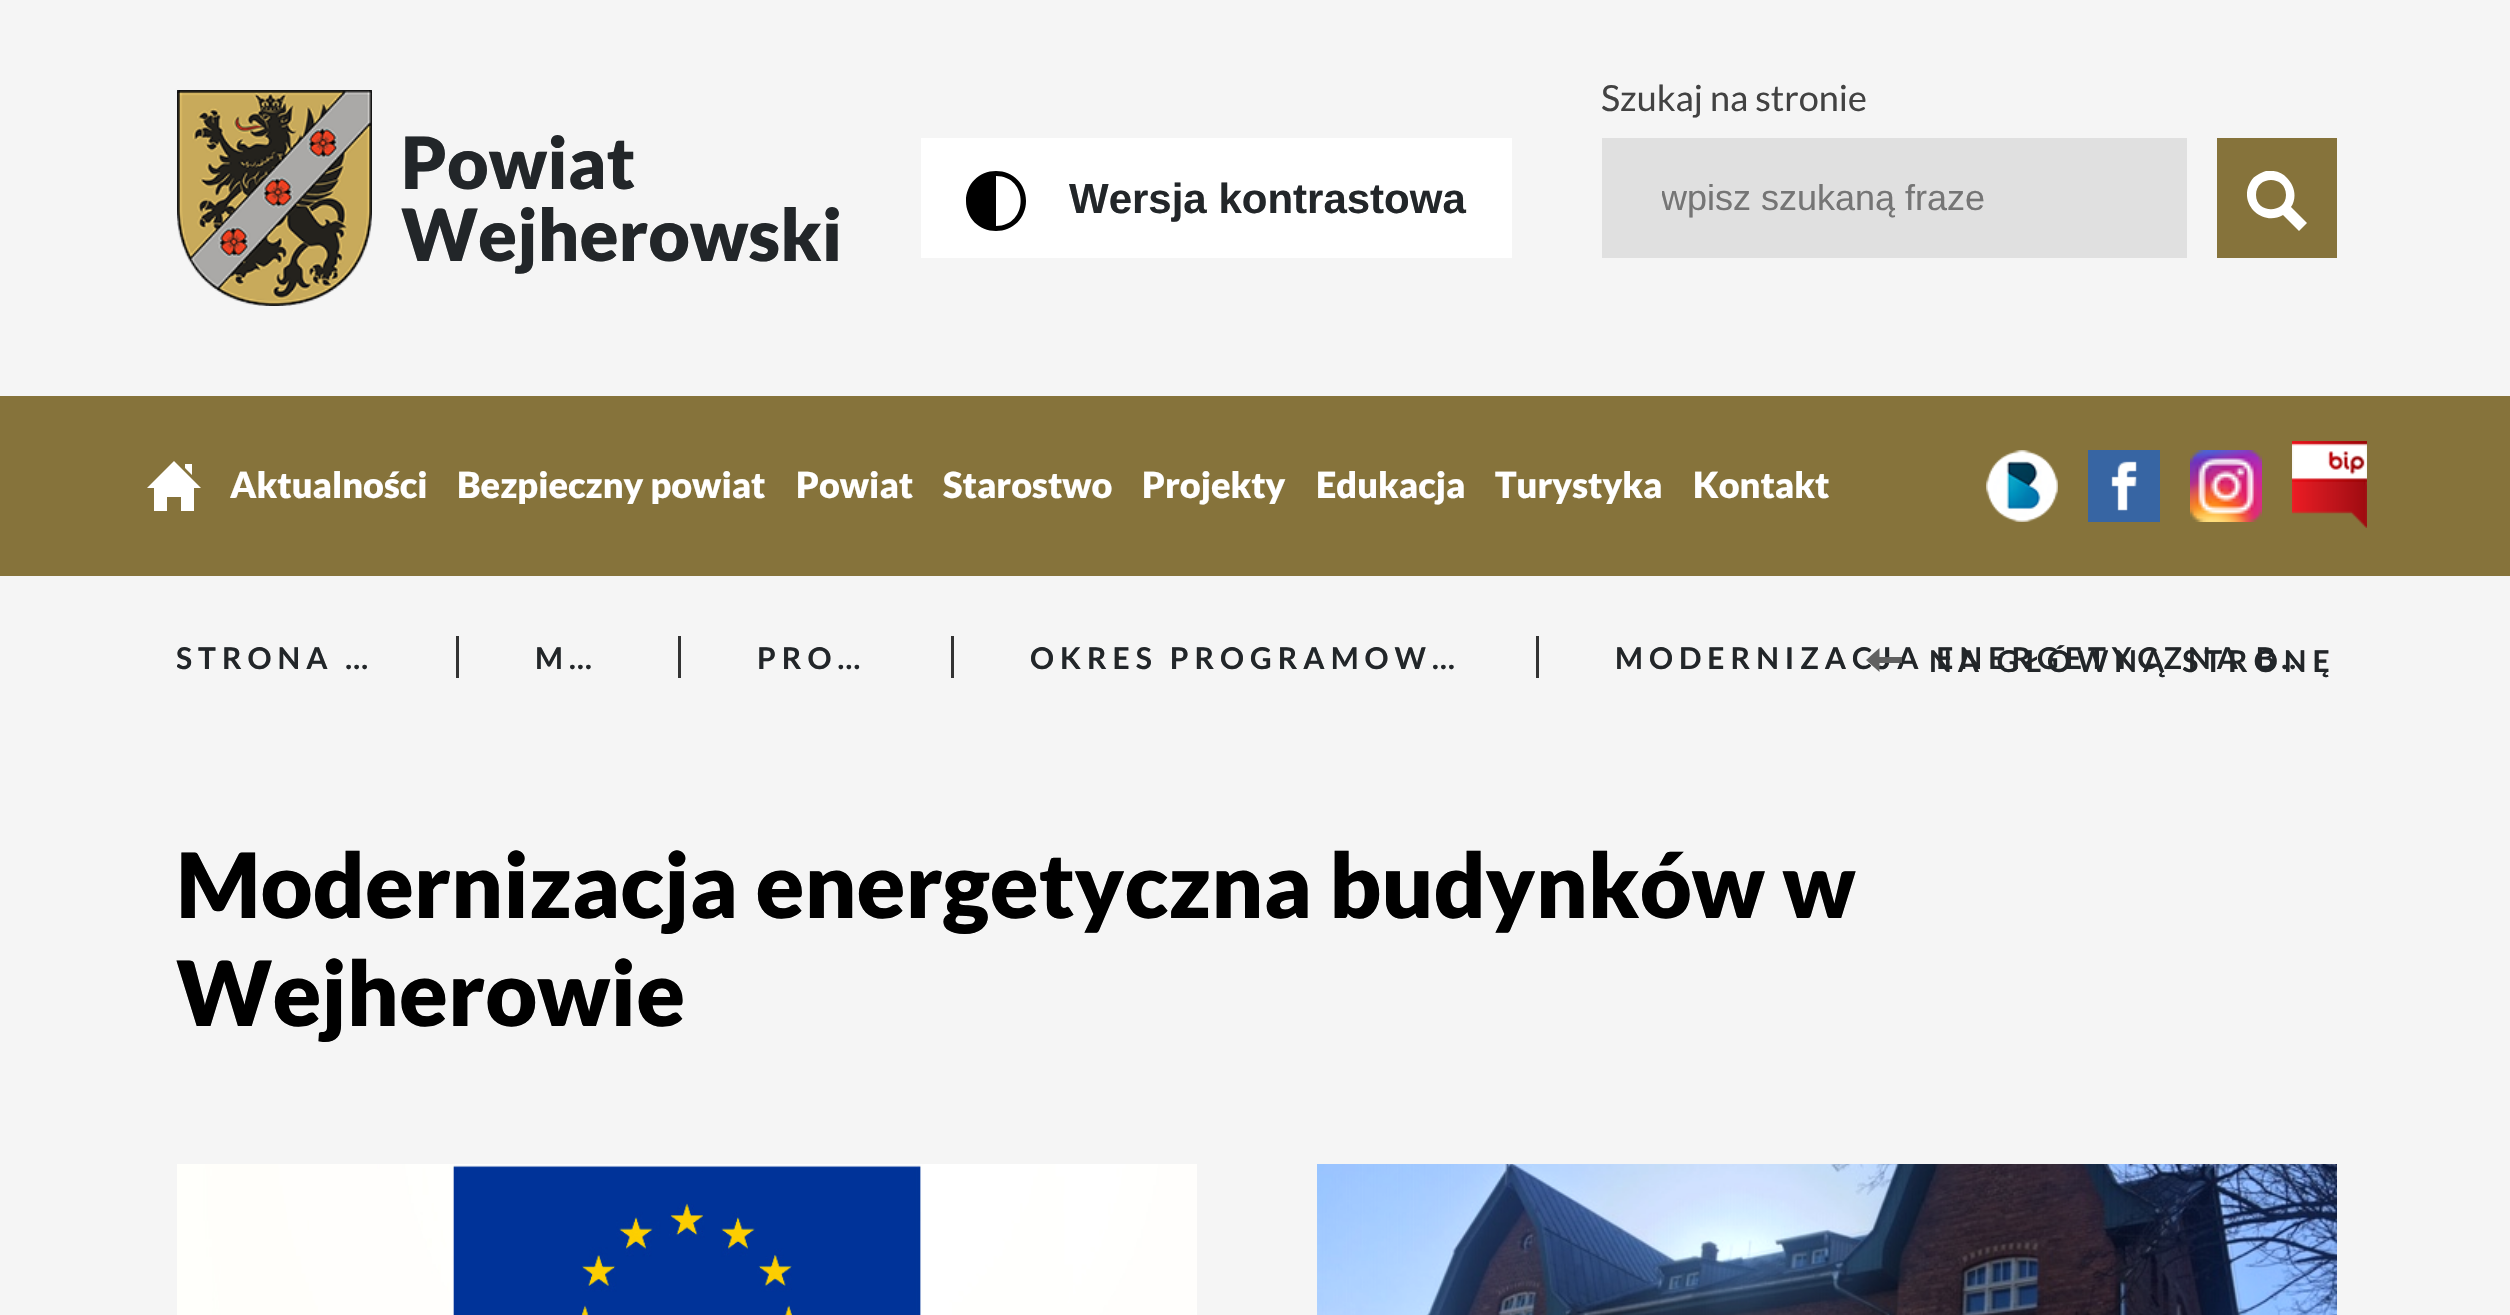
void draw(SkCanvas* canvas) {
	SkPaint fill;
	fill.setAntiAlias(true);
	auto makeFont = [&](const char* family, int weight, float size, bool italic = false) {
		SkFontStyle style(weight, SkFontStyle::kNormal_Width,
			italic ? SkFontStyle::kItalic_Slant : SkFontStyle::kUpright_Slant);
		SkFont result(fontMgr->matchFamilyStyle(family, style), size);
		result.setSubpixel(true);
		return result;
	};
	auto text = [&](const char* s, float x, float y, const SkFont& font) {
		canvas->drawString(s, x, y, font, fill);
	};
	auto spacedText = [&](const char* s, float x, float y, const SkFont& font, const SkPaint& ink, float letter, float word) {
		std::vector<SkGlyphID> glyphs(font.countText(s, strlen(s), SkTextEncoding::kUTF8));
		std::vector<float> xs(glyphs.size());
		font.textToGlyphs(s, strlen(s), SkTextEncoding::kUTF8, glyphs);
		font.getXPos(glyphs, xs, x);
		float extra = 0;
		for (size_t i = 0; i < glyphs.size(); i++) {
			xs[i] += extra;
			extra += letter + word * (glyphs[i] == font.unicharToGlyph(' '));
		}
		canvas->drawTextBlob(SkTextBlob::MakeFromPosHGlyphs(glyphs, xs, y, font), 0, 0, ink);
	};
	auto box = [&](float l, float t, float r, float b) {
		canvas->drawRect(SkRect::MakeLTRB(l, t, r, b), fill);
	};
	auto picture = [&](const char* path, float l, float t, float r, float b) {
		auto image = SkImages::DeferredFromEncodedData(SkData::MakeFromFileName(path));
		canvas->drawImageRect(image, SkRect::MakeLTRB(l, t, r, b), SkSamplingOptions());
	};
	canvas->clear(0xFFF5F5F5);
	picture("image0.png", 177, 90, 372, 306);
	fill.setColor(0xFFFFFFFF);
	box(921, 138, 1512, 258);
	fill.setColor(0xFF000000);
	canvas->drawPath(SkPathBuilder().moveTo(996, 176).cubicTo(1029, 176, 1029, 226, 996, 226).close().moveTo(996, 171).cubicTo(979, 171, 966, 184, 966, 201).cubicTo(966, 218, 979, 231, 996, 231).cubicTo(1013, 231, 1026, 218, 1026, 201).cubicTo(1026, 184, 1013, 171, 996, 171).close().detach(), fill);
	fill.setColor(0xFFE0E0E0);
	box(1602, 138, 2187, 258);
	fill.setColor(0xFF86733B);
	box(2217, 138, 2337, 258);
	canvas->save();
	canvas->clipRect(SkRect::MakeLTRB(2247, 171, 2307, 231));
	fill.setColor(0xFFFFFFFF);
	canvas->drawPath(SkPathBuilder().moveTo(2307, 223).lineTo(2291, 207).cubicTo(2297, 198, 2295, 186, 2287, 178).cubicTo(2282, 172, 2274, 170, 2266, 171).cubicTo(2260, 173, 2254, 176, 2251, 181).cubicTo(2237, 203, 2262, 227, 2283, 215).lineTo(2299, 231).close().moveTo(2256, 195).cubicTo(2256, 175, 2286, 175, 2286, 195).cubicTo(2286, 214, 2256, 214, 2256, 195).close().detach(), fill);
	canvas->restore();
	fill.setColor(0xFF86733B);
	box(0, 396, 2510, 576);
	fill.setColor(0xFFFFFFFF);
	canvas->drawPath(SkPathBuilder().moveTo(194, 488).lineTo(194, 511).lineTo(181, 511).lineTo(181, 497).lineTo(167, 497).lineTo(167, 511).lineTo(154, 511).lineTo(154, 488).lineTo(147, 488).lineTo(174, 461).lineTo(201, 488).close().moveTo(192, 475).lineTo(192, 464).lineTo(185, 464).lineTo(185, 468).close().detach(), fill);
	picture("image1.png", 1986, 450, 2058, 522);
	picture("image2.png", 2088, 450, 2160, 522);
	picture("image3.png", 2190, 450, 2262, 522);
	picture("image4.png", 2292, 441, 2367, 528);
	fill.setColor(0xFF333333);
	box(456, 636, 459, 678);
	box(678, 636, 681, 678);
	box(951, 636, 954, 678);
	box(1536, 636, 1539, 678);
	picture("image5.png", 177, 1164, 1197, 1315);
	picture("image6.png", 1317, 1164, 2337, 1315);
	auto font1 = makeFont("Lato", 900, 72);
	fill.setColor(0xFF222629);
	text("Powiat", 401, 189, font1);
	text("Wejherowski", 401, 261, font1);
	auto font2 = makeFont("Liberation Sans", 700, 42);
	text("Wersja kontrastowa", 1069, 213, font2);
	auto font3 = makeFont("Lato", 400, 36);
	fill.setColor(0xFF424242);
	text("Szukaj na stronie", 1601, 111, font3);
	canvas->save();
	canvas->clipRect(SkRect::MakeLTRB(1662, 177, 2127, 219));
	auto font4 = makeFont("Liberation Sans", 400, 36);
	fill.setColor(0xFF757575);
	text("wpisz szukaną fraze", 1661, 210, font4);
	canvas->restore();
	auto font5 = makeFont("Lato", 900, 36);
	fill.setColor(0xFFFFFFFF);
	text("Aktualności", 230, 498, font5);
	text("Bezpieczny powiat", 457, 498, font5);
	text("Powiat", 796, 498, font5);
	text("Starostwo", 943, 498, font5);
	text("Projekty", 1142, 498, font5);
	text("Edukacja", 1316, 498, font5);
	text("Turystyka", 1495, 498, font5);
	text("Kontakt", 1693, 498, font5);
	canvas->save();
	canvas->clipRect(SkRect::MakeLTRB(177, 636, 381, 678));
	auto font6 = makeFont("Lato", 700, 30);
	fill.setColor(0xFF222629);
	spacedText("STRONA …", 176, 669, font6, fill, 6, 0);
	canvas->restore();
	spacedText("M…", 535, 669, font6, fill, 6, 0);
	spacedText("PRO…", 757, 669, font6, fill, 6, 0);
	spacedText("OKRES PROGRAMOW…", 1030, 669, font6, fill, 6, 0);
	spacedText("MODERNIZACJA ENERGETYCZNA B…", 1615, 669, font6, fill, 6, 0);
	fill.setColor(0xFF616161);
	canvas->drawPath(SkPathBuilder().moveTo(1866, 660).lineTo(1879.5f, 648).lineTo(1879.5f, 657).lineTo(1902, 657).lineTo(1902, 663).lineTo(1879.5f, 663).lineTo(1879.5f, 672).close().detach(), fill);
	fill.setColor(0xFF222629);
	spacedText("NA GŁÓWNĄ STRONĘ", 1929, 672, font6, fill, 6, 0);
	auto font7 = makeFont("Lato", 900, 90);
	fill.setColor(0xFF000000);
	text("Modernizacja energetyczna budynków w", 176, 918, font7);
	text("Wejherowie", 176, 1026, font7);
}
